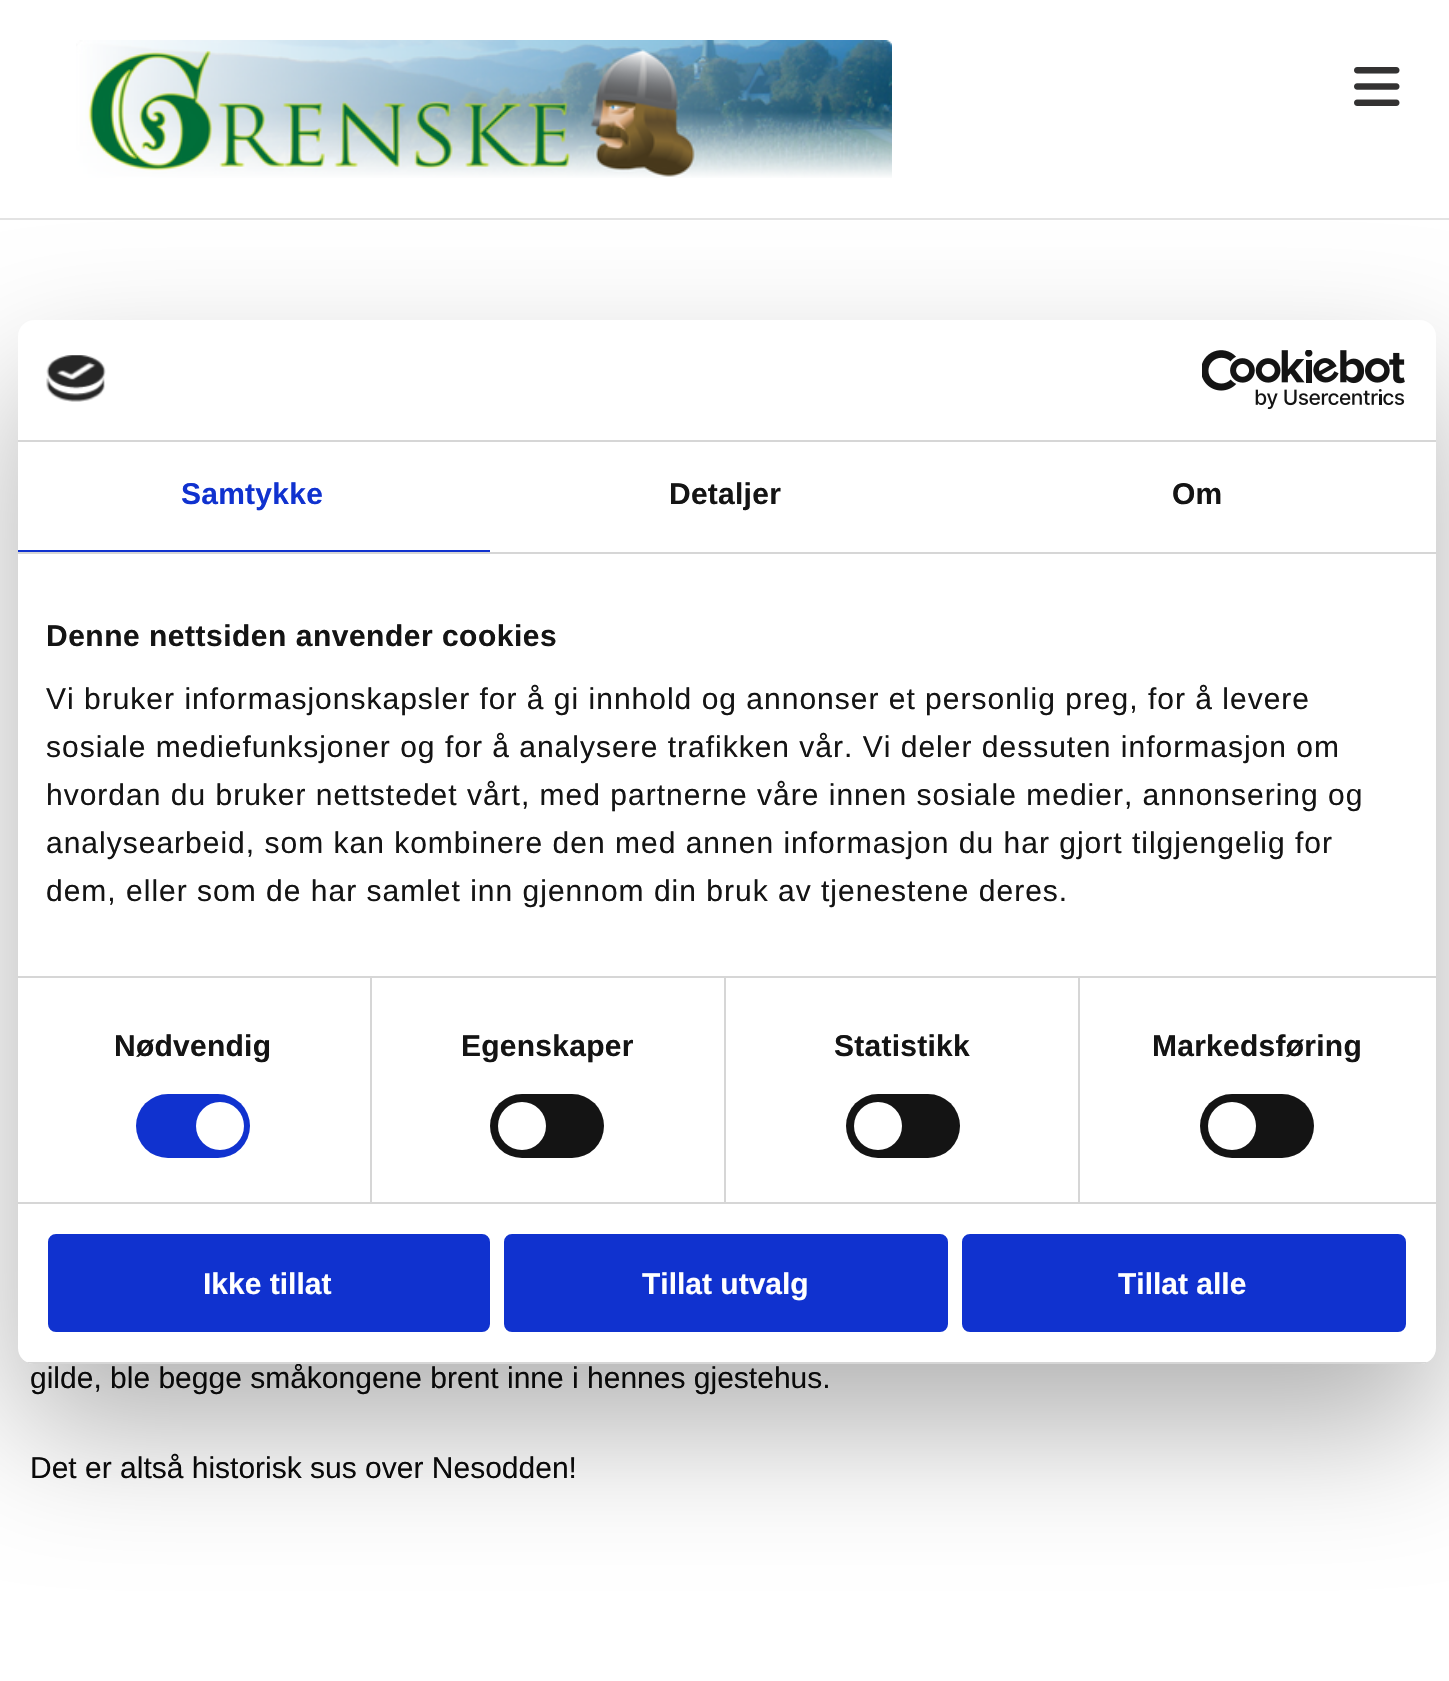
void draw(SkCanvas* canvas) {
	SkPaint fill;
	fill.setAntiAlias(true);
	auto makeFont = [&](const char* family, int weight, float size, bool italic = false) {
		SkFontStyle style(weight, SkFontStyle::kNormal_Width,
			italic ? SkFontStyle::kItalic_Slant : SkFontStyle::kUpright_Slant);
		SkFont result(fontMgr->matchFamilyStyle(family, style), size);
		result.setSubpixel(true);
		return result;
	};
	auto text = [&](const char* s, float x, float y, const SkFont& font) {
		canvas->drawString(s, x, y, font, fill);
	};
	auto spacedText = [&](const char* s, float x, float y, const SkFont& font, const SkPaint& ink, float letter, float word) {
		std::vector<SkGlyphID> glyphs(font.countText(s, strlen(s), SkTextEncoding::kUTF8));
		std::vector<float> xs(glyphs.size());
		font.textToGlyphs(s, strlen(s), SkTextEncoding::kUTF8, glyphs);
		font.getXPos(glyphs, xs, x);
		float extra = 0;
		for (size_t i = 0; i < glyphs.size(); i++) {
			xs[i] += extra;
			extra += letter + word * (glyphs[i] == font.unicharToGlyph(' '));
		}
		canvas->drawTextBlob(SkTextBlob::MakeFromPosHGlyphs(glyphs, xs, y, font), 0, 0, ink);
	};
	auto box = [&](float l, float t, float r, float b) {
		canvas->drawRect(SkRect::MakeLTRB(l, t, r, b), fill);
	};
	auto roundBox = [&](float l, float t, float r, float b, float radius) {
		canvas->drawRoundRect(SkRect::MakeLTRB(l, t, r, b), radius, radius, fill);
	};
	auto picture = [&](const char* path, float l, float t, float r, float b) {
		auto image = SkImages::DeferredFromEncodedData(SkData::MakeFromFileName(path));
		canvas->drawImageRect(image, SkRect::MakeLTRB(l, t, r, b), SkSamplingOptions());
	};
	canvas->clear(0xFFFFFFFF);
	fill.setColor(0xFFE3E3E3);
	box(0, 218, 1449, 220);
	fill.setColor(0x4D000000);
	fill.setMaskFilter(SkMaskFilter::MakeBlur(kNormal_SkBlurStyle, 68));
	canvas->drawRoundRect(SkRect::MakeLTRB(18, 384, 1436, 1428), 16, 16, fill);
	fill.setMaskFilter(nullptr);
	picture("image2.png", 76, 40, 892, 178);
	picture("image3.png", 1354, 67, 1400, 106);
	auto font1 = makeFont("Liberation Sans", 400, 30);
	fill.setColor(0xFF0A0A0A);
	text("gilde, ble begge småkongene brent inne i hennes gjestehus.", 30, 1388, font1);
	fill.setColor(0xFFFFFFFF);
	roundBox(18, 320, 1436, 1364, 16);
	fill.setColor(0xFF1032CF);
	canvas->drawRoundRect(SkRect::MakeLTRB(964, 1236, 1404, 1330), 6, 6, fill);
	fill.setStyle(SkPaint::kStroke_Style);
	fill.setStrokeWidth(4);
	canvas->drawRoundRect(SkRect::MakeLTRB(964, 1236, 1404, 1330), 6, 6, fill);
	auto font2 = makeFont("Liberation Sans", 700, 30);
	fill.setStyle(SkPaint::kFill_Style);
	fill.setColor(0xFFFFFFFF);
	text("Tillat alle", 1118, 1294, font2);
	fill.setColor(0xFF1032CF);
	canvas->drawRoundRect(SkRect::MakeLTRB(506, 1236, 946, 1330), 6, 6, fill);
	fill.setStyle(SkPaint::kStroke_Style);
	canvas->drawRoundRect(SkRect::MakeLTRB(506, 1236, 946, 1330), 6, 6, fill);
	fill.setStyle(SkPaint::kFill_Style);
	fill.setColor(0xFFFFFFFF);
	text("Tillat utvalg", 642, 1294, font2);
	fill.setColor(0xFF1032CF);
	canvas->drawRoundRect(SkRect::MakeLTRB(50, 1236, 488, 1330), 6, 6, fill);
	fill.setStyle(SkPaint::kStroke_Style);
	canvas->drawRoundRect(SkRect::MakeLTRB(50, 1236, 488, 1330), 6, 6, fill);
	fill.setStyle(SkPaint::kFill_Style);
	fill.setColor(0xFFFFFFFF);
	text("Ikke tillat", 203, 1294, font2);
	canvas->save();
	canvas->clipPath(SkPathBuilder().moveTo(34, 320).lineTo(1420, 320).cubicTo(1429, 320, 1436, 327, 1436, 336).lineTo(1436, 1348).cubicTo(1436, 1357, 1429, 1364, 1420, 1364).lineTo(34, 1364).cubicTo(25, 1364, 18, 1357, 18, 1348).lineTo(18, 336).cubicTo(18, 327, 25, 320, 34, 320).close().detach(), true);
	fill.setColor(0xFFD6D6D6);
	box(18, 1362, 1436, 1364);
	canvas->restore();
	fill.setColor(0xFF141414);
	roundBox(1200, 1094, 1314, 1158, 32);
	fill.setColor(0xFFFFFFFF);
	canvas->drawCircle(1232, 1126, 24, fill);
	fill.setColor(0xFF141414);
	roundBox(846, 1094, 960, 1158, 32);
	fill.setColor(0xFFFFFFFF);
	canvas->drawCircle(878, 1126, 24, fill);
	fill.setColor(0xFF141414);
	roundBox(490, 1094, 604, 1158, 32);
	fill.setColor(0xFFFFFFFF);
	canvas->drawCircle(522, 1126, 24, fill);
	fill.setColor(0xFF1032CF);
	roundBox(136, 1094, 250, 1158, 32);
	fill.setColor(0xFFFFFFFF);
	canvas->drawCircle(220, 1126, 24, fill);
	fill.setColor(0xFF141414);
	spacedText("dem, eller som de har samlet inn gjennom din bruk av tjenestene deres.", 46, 901, font1, fill, 1, 0);
	spacedText("analysearbeid, som kan kombinere den med annen informasjon du har gjort tilgjengelig for", 46, 853, font1, fill, 1, 0);
	spacedText("hvordan du bruker nettstedet vårt, med partnerne våre innen sosiale medier, annonsering og", 46, 805, font1, fill, 1, 0);
	spacedText("sosiale mediefunksjoner og for å analysere trafikken vår. Vi deler dessuten informasjon om", 46, 757, font1, fill, 1, 0);
	spacedText("Vi bruker informasjonskapsler for å gi innhold og annonser et personlig preg, for å levere", 46, 709, font1, fill, 1, 0);
	spacedText("Denne nettsiden anvender cookies", 46, 646, font2, fill, 0.5f, 0);
	fill.setColor(0xFFD6D6D6);
	box(18, 976, 1436, 978);
	fill.setColor(0xFF141414);
	spacedText("Om", 1172, 504, font2, fill, 0.25f, 0);
	spacedText("Detaljer", 669, 504, font2, fill, 0.25f, 0);
	fill.setColor(0xFF1032CF);
	spacedText("Samtykke", 181, 504, font2, fill, 0.25f, 0);
	box(18, 550, 490, 552);
	fill.setColor(0xFFD6D6D6);
	box(18, 552, 1436, 554);
	fill.setColor(0xFF141414);
	spacedText("Markedsføring", 1152, 1056, font2, fill, 0.25f, 0);
	spacedText("Statistikk", 834, 1056, font2, fill, 0.25f, 0);
	fill.setColor(0xFFD6D6D6);
	box(1078, 978, 1080, 1202);
	fill.setColor(0xFF141414);
	spacedText("Egenskaper", 461, 1056, font2, fill, 0.25f, 0);
	fill.setColor(0xFFD6D6D6);
	box(724, 978, 726, 1202);
	fill.setColor(0xFF141414);
	spacedText("Nødvendig", 114, 1056, font2, fill, 0.25f, 0);
	fill.setColor(0xFFD6D6D6);
	box(370, 978, 372, 1202);
	box(18, 1202, 1436, 1204);
	picture("image1.png", 1202, 350, 1405, 410);
	picture("image0.png", 46, 355, 106, 402);
	box(18, 440, 1436, 442);
	fill.setColor(0xFF0A0A0A);
	text("Det er altså historisk sus over Nesodden!", 30, 1478, font1);
}
